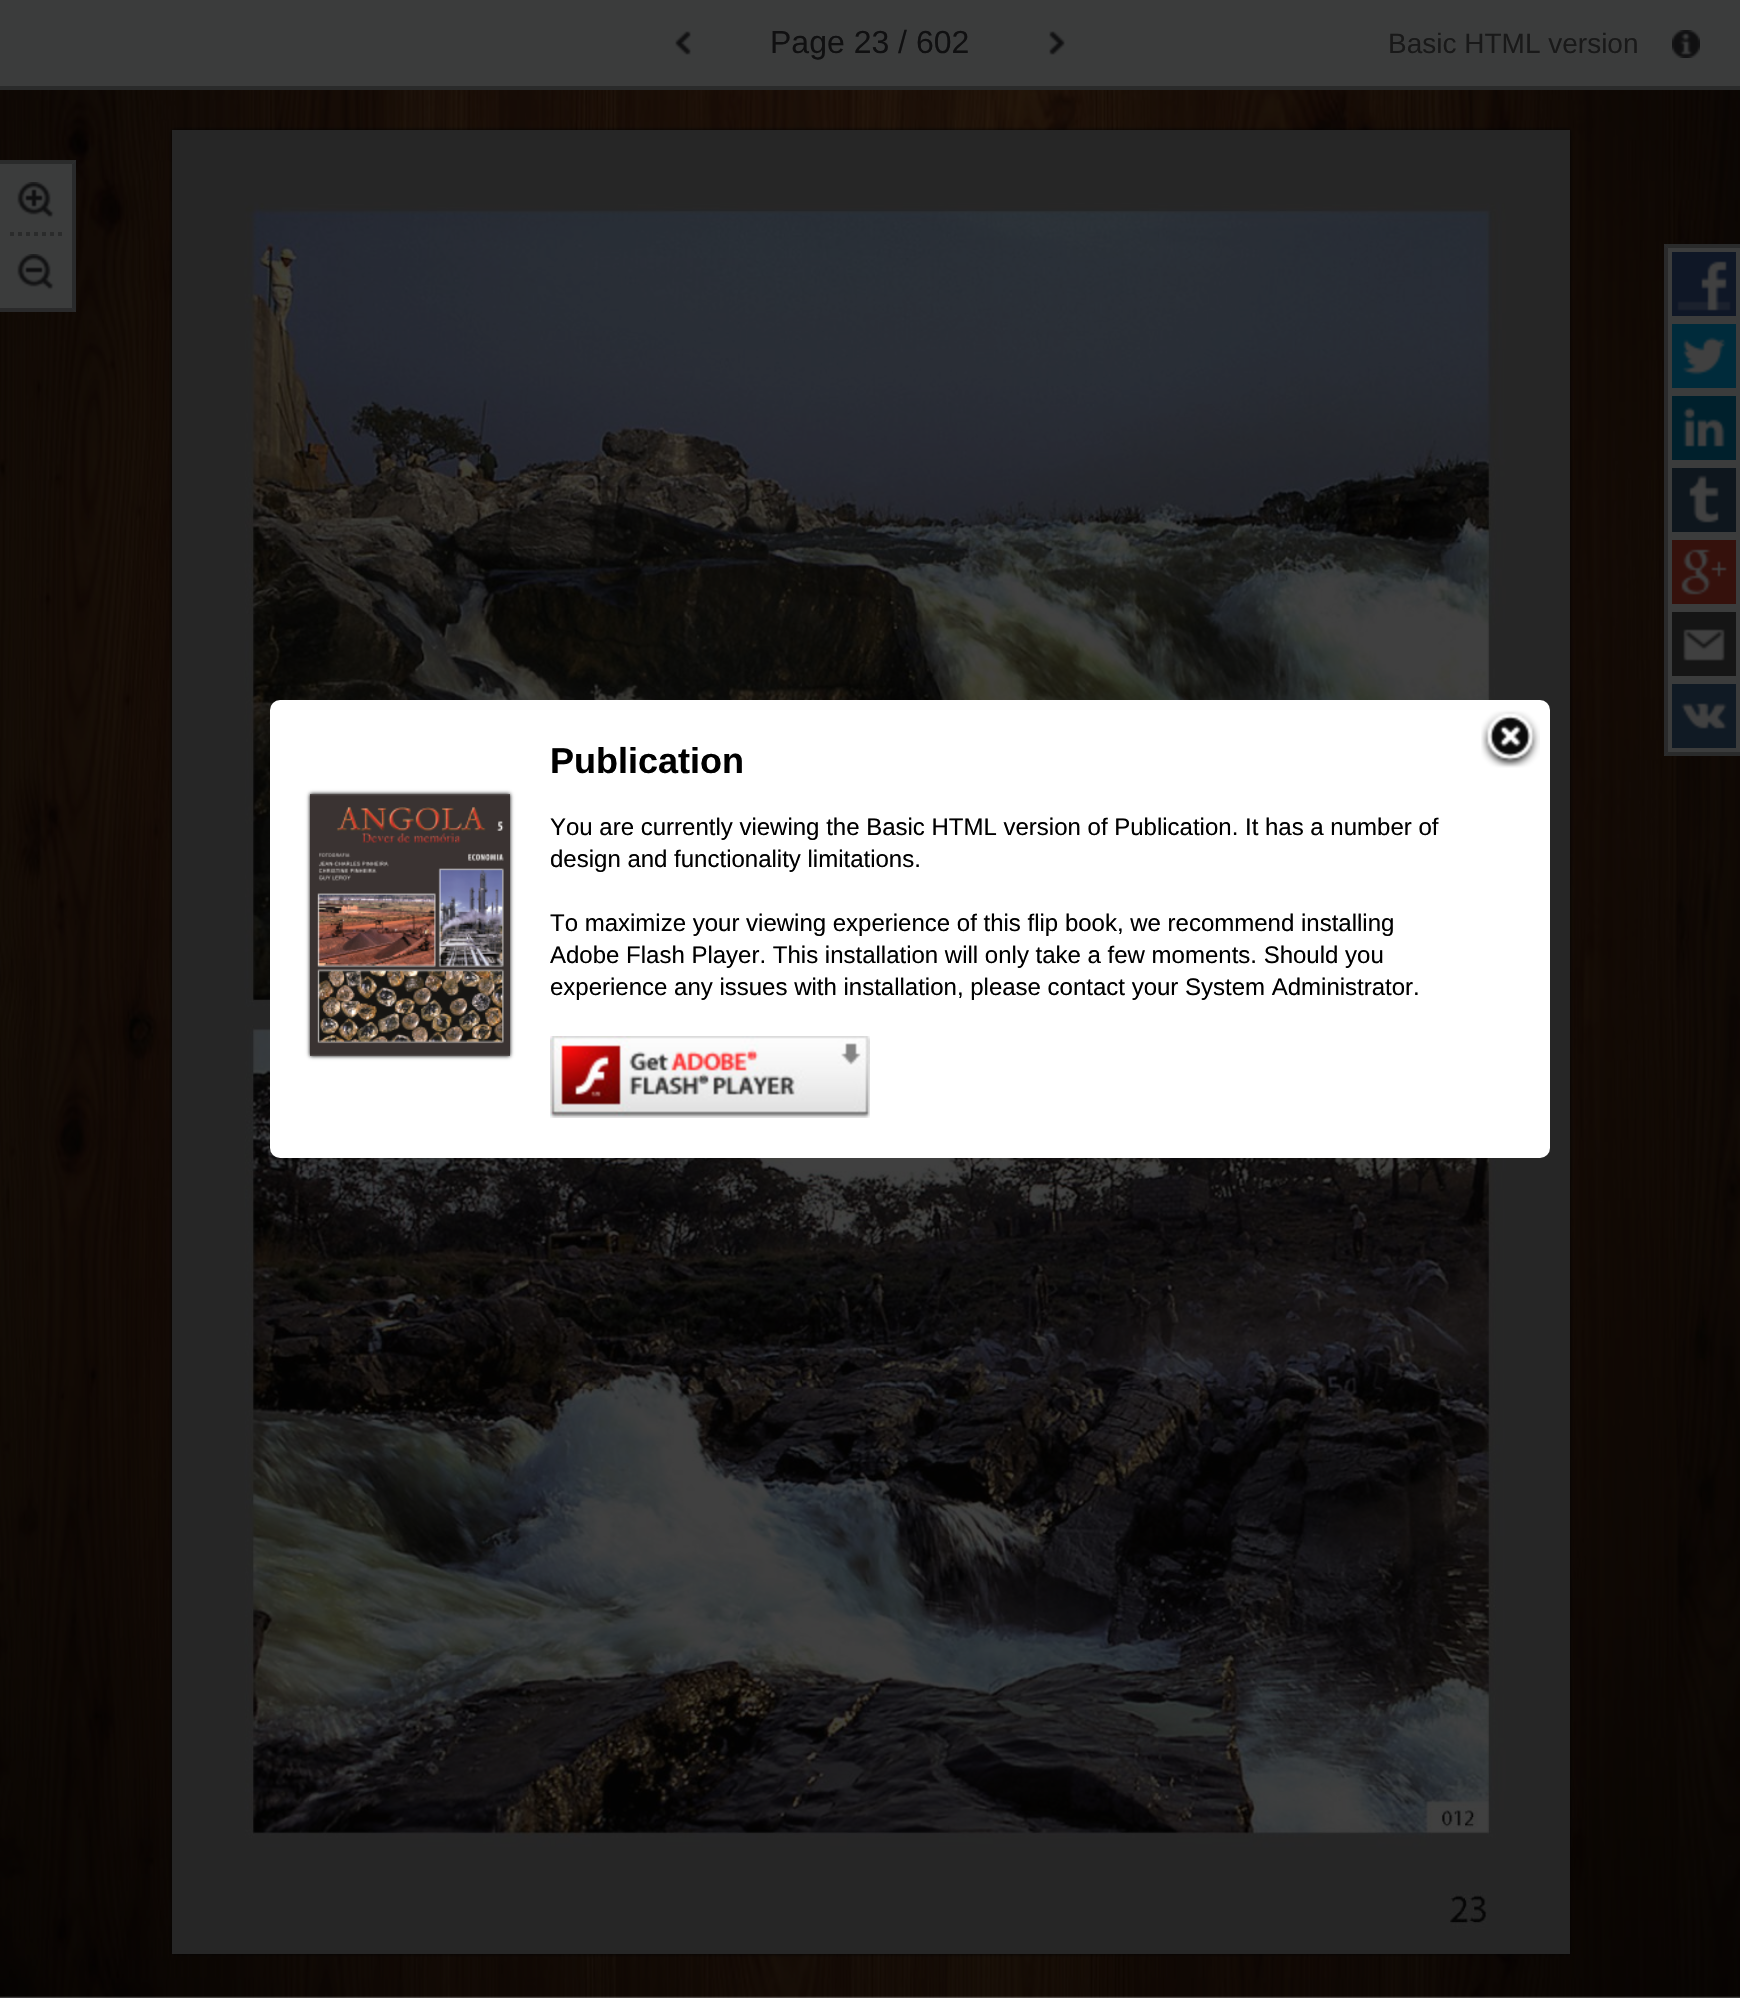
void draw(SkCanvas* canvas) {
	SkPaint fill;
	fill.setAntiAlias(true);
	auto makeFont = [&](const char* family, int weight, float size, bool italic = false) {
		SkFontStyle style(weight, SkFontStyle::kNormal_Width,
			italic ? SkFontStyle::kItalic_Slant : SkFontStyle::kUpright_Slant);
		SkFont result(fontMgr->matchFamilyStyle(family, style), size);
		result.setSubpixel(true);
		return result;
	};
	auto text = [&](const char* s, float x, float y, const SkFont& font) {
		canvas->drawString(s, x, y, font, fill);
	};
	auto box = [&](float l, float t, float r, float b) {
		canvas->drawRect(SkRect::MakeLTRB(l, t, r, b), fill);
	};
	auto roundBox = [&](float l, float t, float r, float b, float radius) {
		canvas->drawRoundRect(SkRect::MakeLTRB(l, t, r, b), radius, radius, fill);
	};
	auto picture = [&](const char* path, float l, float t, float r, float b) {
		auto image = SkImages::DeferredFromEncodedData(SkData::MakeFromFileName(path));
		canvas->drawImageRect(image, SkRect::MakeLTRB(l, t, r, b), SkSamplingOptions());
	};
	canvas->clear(0xFFFFFFFF);
	fill.setColor(0xFF3B3C3C);
	box(0, 0, 1740, 86);
	fill.setColor(0xFF2A2B2B);
	box(0, 86, 1740, 90);
	picture("image0.png", 675, 31, 691, 55);
	picture("image1.png", 1049, 31, 1065, 55);
	picture("image2.png", 1672, 30, 1700, 58);
	picture("image12.png", 0, 90, 1740, 1998);
	fill.setColor(0xFF3B3C3C);
	box(0, 160, 76, 312);
	fill.setColor(0xFF2A2B2B);
	canvas->drawPath(SkPathBuilder().moveTo(0, 160).lineTo(76, 160).lineTo(72, 164).lineTo(0, 164).close().detach(), fill);
	fill.setColor(0x66101011);
	canvas->drawPath(SkPathBuilder().moveTo(76, 160).lineTo(76, 312).lineTo(72, 308).lineTo(72, 164).close().detach(), fill);
	canvas->drawPath(SkPathBuilder().moveTo(76, 312).lineTo(0, 312).lineTo(0, 308).lineTo(72, 308).close().detach(), fill);
	picture("image3.png", 17, 182, 55, 218);
	fill.setStyle(SkPaint::kStroke_Style);
	fill.setStrokeWidth(4);
	fill.setColor(0xFF2A2B2B);
	fill.setPathEffect(SkDashPathEffect::Make({{4, 4}}, 0));
	canvas->drawPath(SkPathBuilder().moveTo(10, 234).lineTo(62, 234).detach(), fill);
	fill.setPathEffect(nullptr);
	picture("image4.png", 17, 254, 55, 290);
	fill.setStyle(SkPaint::kFill_Style);
	fill.setColor(0xFF3B3C3C);
	box(1664, 244, 1740, 756);
	fill.setColor(0xFF2A2B2B);
	canvas->drawPath(SkPathBuilder().moveTo(1664, 244).lineTo(1740, 244).lineTo(1740, 248).lineTo(1668, 248).close().detach(), fill);
	canvas->drawPath(SkPathBuilder().moveTo(1740, 756).lineTo(1664, 756).lineTo(1668, 752).lineTo(1740, 752).close().detach(), fill);
	fill.setColor(0x66101011);
	canvas->drawPath(SkPathBuilder().moveTo(1664, 756).lineTo(1664, 244).lineTo(1668, 248).lineTo(1668, 752).close().detach(), fill);
	picture("image5.png", 1672, 252, 1736, 316);
	picture("image6.png", 1672, 324, 1736, 388);
	picture("image7.png", 1672, 396, 1736, 460);
	picture("image8.png", 1672, 468, 1736, 532);
	picture("image9.png", 1672, 540, 1736, 604);
	picture("image10.png", 1672, 612, 1736, 676);
	picture("image11.png", 1672, 684, 1736, 748);
	fill.setColor(0xFF000000);
	fill.setMaskFilter(SkMaskFilter::MakeBlur(kNormal_SkBlurStyle, 2));
	canvas->drawRect(SkRect::MakeLTRB(172, 130, 1570, 1954), fill);
	fill.setMaskFilter(nullptr);
	picture("image13.png", 172, 130, 1570, 1954);
	fill.setColor(0xFFFFFFFF);
	roundBox(270, 700, 1550, 1158, 10);
	picture("image14.png", 1481, 710, 1540, 768);
	fill.setColor(0xFF000000);
	fill.setMaskFilter(SkMaskFilter::MakeBlur(kNormal_SkBlurStyle, 2));
	canvas->drawRect(SkRect::MakeLTRB(310, 794, 510, 1056), fill);
	fill.setMaskFilter(nullptr);
	picture("image15.png", 310, 794, 510, 1056);
	picture("image16.png", 550, 1036, 870, 1118);
	auto font1 = makeFont("Liberation Sans", 400, 32);
	fill.setColor(0xFF101011);
	text("Page 23 / 602", 770, 53, font1);
	auto font2 = makeFont("Liberation Sans", 400, 28);
	fill.setColor(0xFF191919);
	text("Basic HTML version", 1388, 53, font2);
	auto font3 = makeFont("Liberation Sans", 700, 36);
	fill.setColor(0xFF000000);
	text("Publication", 550, 773, font3);
	auto font4 = makeFont("Liberation Sans", 400, 24);
	text("You are currently viewing the Basic HTML version of Publication. It has a number of", 550, 835, font4);
	text("design and functionality limitations.", 550, 867, font4);
	text("To maximize your viewing experience of this flip book, we recommend installing", 550, 931, font4);
	text("Adobe Flash Player. This installation will only take a few moments. Should you", 550, 963, font4);
	text("experience any issues with installation, please contact your System Administrator.", 550, 995, font4);
}
